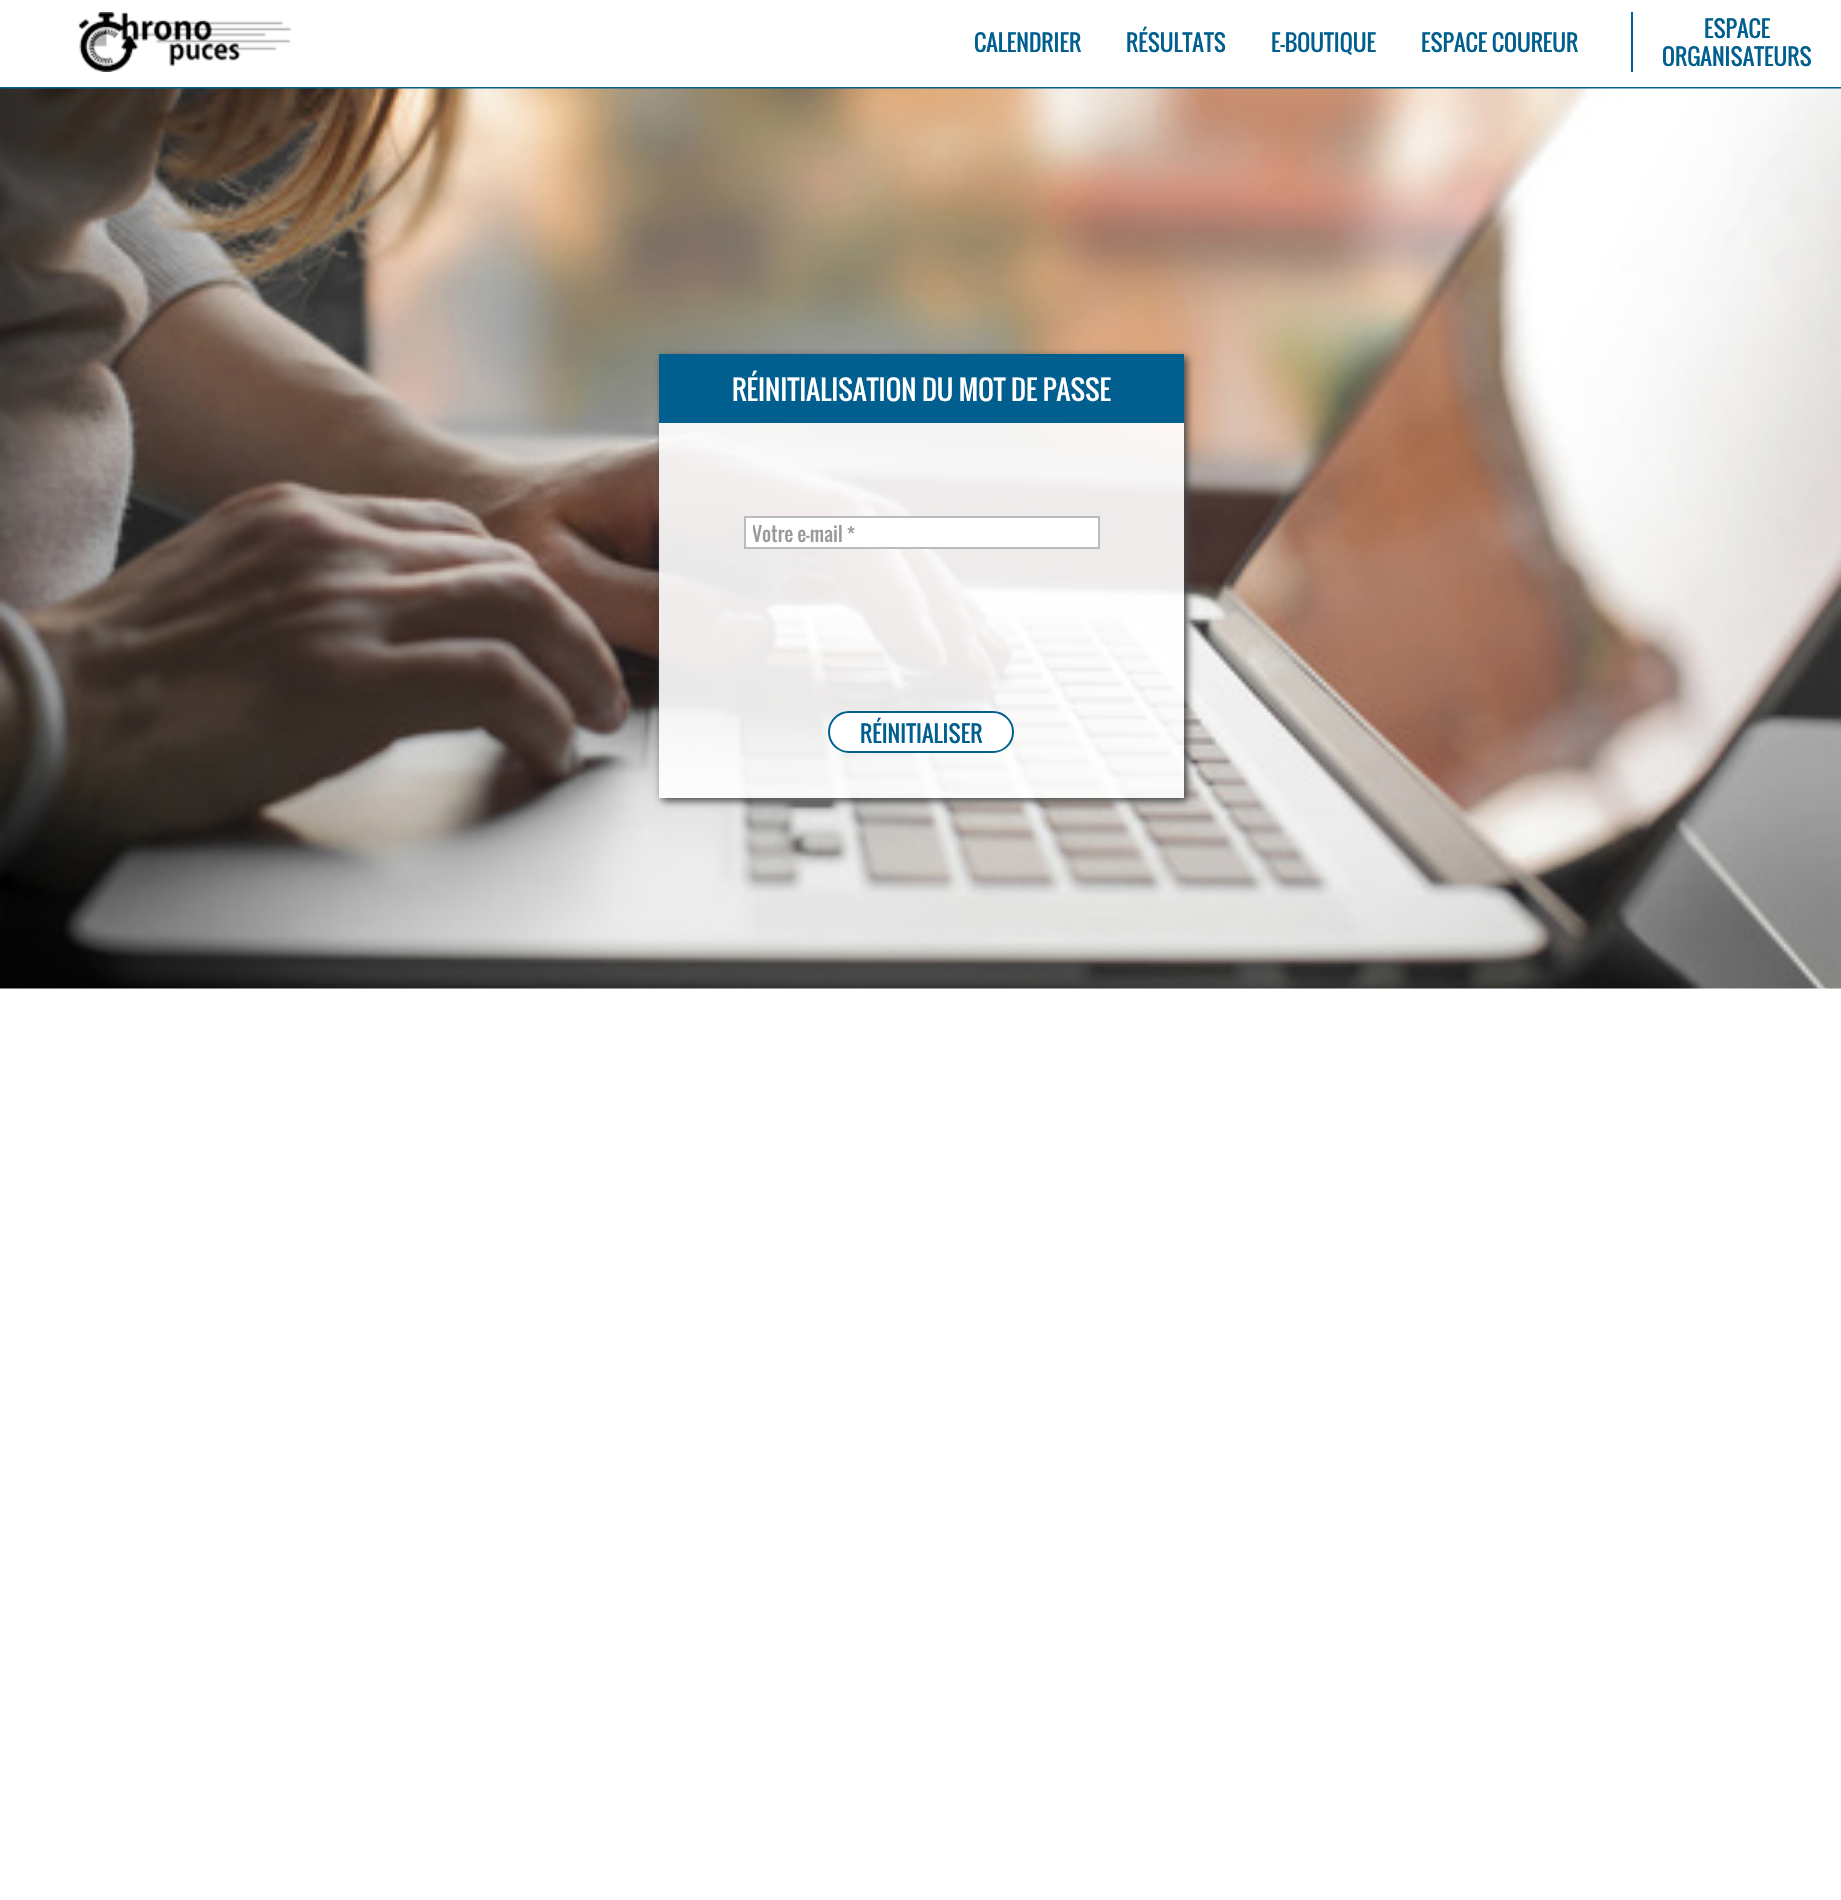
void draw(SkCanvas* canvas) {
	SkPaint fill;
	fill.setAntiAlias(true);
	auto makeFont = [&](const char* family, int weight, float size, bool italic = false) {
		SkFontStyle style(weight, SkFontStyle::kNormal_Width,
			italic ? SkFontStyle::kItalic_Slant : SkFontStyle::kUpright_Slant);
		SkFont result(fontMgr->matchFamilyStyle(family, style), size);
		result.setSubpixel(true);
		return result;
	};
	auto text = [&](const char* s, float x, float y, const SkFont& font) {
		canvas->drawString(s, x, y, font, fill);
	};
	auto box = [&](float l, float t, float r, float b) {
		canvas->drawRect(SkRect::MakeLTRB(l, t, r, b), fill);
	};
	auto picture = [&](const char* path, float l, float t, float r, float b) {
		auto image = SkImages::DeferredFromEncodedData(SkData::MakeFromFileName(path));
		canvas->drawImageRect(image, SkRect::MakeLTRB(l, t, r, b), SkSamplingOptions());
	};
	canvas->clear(0xFFFFFFFF);
	fill.setColor(0xFF005F8E);
	box(0, 87, 1841, 89);
	picture("image0.png", 78, 12, 292, 72);
	box(1631, 12, 1633, 72);
	picture("image1.png", 0, 88, 1841, 989);
	canvas->save();
	canvas->clipPath(SkPathBuilder(SkPathFillType::kEvenOdd).moveTo(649, 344).lineTo(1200, 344).lineTo(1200, 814).lineTo(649, 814).close().moveTo(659, 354).lineTo(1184, 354).lineTo(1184, 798).lineTo(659, 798).close().detach(), true);
	fill.setColor(0xFF444444);
	fill.setMaskFilter(SkMaskFilter::MakeBlur(kNormal_SkBlurStyle, 4));
	canvas->drawRect(SkRect::MakeLTRB(662, 357, 1187, 801), fill);
	fill.setMaskFilter(nullptr);
	canvas->restore();
	fill.setColor(0xE6FFFFFF);
	box(659, 423, 1184, 798);
	fill.setColor(0xFF005F8E);
	box(659, 354, 1184, 423);
	fill.setColor(0xFFFFFFFF);
	canvas->drawRect(SkRect::MakeLTRB(745, 517, 1099, 548), fill);
	fill.setStyle(SkPaint::kStroke_Style);
	fill.setStrokeWidth(2);
	fill.setColor(0xFFBBBBBB);
	canvas->drawRect(SkRect::MakeLTRB(745, 517, 1099, 548), fill);
	fill.setStyle(SkPaint::kFill_Style);
	fill.setColor(0xFFFFFFFF);
	canvas->drawRoundRect(SkRect::MakeLTRB(829, 712, 1013, 752), 20, 20, fill);
	fill.setStyle(SkPaint::kStroke_Style);
	fill.setColor(0xFF005F8E);
	canvas->drawRoundRect(SkRect::MakeLTRB(829, 712, 1013, 752), 20, 20, fill);
	auto font1 = makeFont("Oswald", 400, 22.5f);
	fill.setStyle(SkPaint::kFill_Style);
	text("CALENDRIER", 974, 52, font1);
	text("RÉSULTATS", 1126, 52, font1);
	text("E-BOUTIQUE", 1271, 52, font1);
	text("ESPACE COUREUR", 1421, 52, font1);
	text("ESPACE", 1704, 38, font1);
	text("ORGANISATEURS", 1662, 66, font1);
	auto font2 = makeFont("Oswald", 400, 27);
	fill.setColor(0xFFFFFFFF);
	text("RÉINITIALISATION DU MOT DE PASSE", 732, 401, font2);
	canvas->save();
	canvas->clipRect(SkRect::MakeLTRB(753, 518, 1091, 548));
	auto font3 = makeFont("Oswald", 400, 19.5f);
	fill.setColor(0xFF999999);
	text("Votre e-mail *", 752, 542, font3);
	canvas->restore();
	fill.setColor(0xFF005F8E);
	text("RÉINITIALISER", 860, 743, font1);
}
